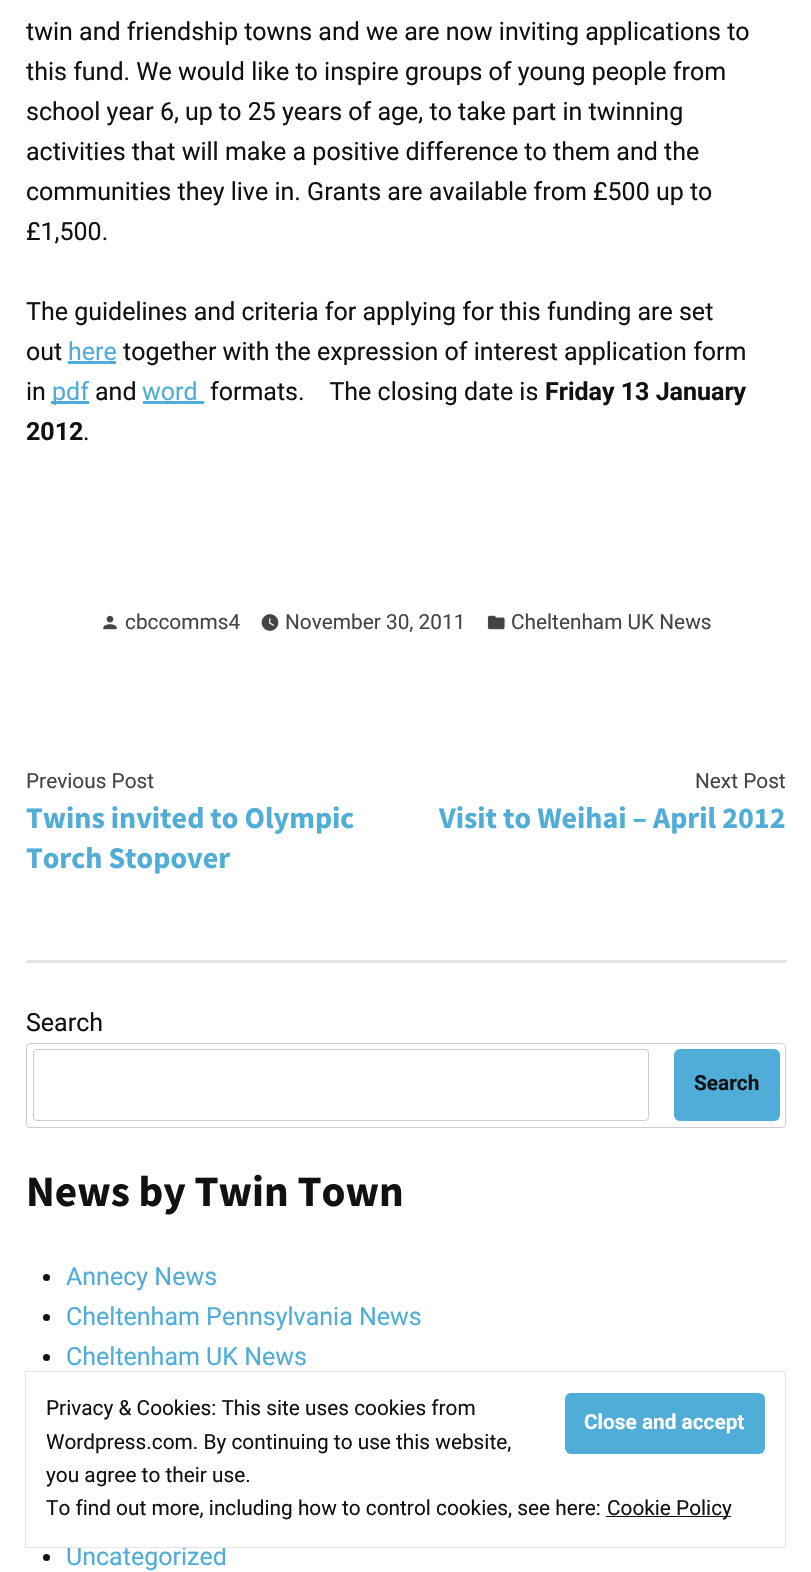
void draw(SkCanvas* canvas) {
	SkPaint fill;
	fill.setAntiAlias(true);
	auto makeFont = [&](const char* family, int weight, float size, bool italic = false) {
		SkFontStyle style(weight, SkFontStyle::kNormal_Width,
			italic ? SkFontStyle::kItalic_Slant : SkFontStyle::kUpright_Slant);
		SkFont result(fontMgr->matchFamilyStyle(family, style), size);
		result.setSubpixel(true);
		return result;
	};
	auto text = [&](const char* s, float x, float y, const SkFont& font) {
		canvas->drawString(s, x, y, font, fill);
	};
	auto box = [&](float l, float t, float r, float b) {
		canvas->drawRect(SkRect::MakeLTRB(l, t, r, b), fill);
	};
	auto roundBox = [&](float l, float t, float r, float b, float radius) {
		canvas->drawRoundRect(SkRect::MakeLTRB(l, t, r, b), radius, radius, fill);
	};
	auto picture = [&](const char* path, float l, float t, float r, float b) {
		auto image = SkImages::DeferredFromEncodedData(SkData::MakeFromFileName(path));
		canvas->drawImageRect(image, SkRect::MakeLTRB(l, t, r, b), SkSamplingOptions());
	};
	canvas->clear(0xFFFFFFFF);
	fill.setColor(0xFF4FADD8);
	box(68, 361, 116, 364);
	box(51, 401, 89, 404);
	box(143, 401, 204, 404);
	picture("image0.png", 103, 615, 117, 630);
	picture("image1.png", 261, 614, 279, 631);
	picture("image2.png", 487, 615, 505, 630);
	fill.setColor(0xFFE5E5E5);
	box(26, 960, 786, 963);
	fill.setStyle(SkPaint::kStroke_Style);
	fill.setStrokeWidth(1);
	fill.setColor(0xFFCCCCCC);
	canvas->drawRoundRect(SkRect::MakeLTRB(26.5f, 1043.5f, 785.5f, 1127.5f), 3.5f, 3.5f, fill);
	canvas->drawRoundRect(SkRect::MakeLTRB(33.5f, 1049.5f, 648.5f, 1120.5f), 3.5f, 3.5f, fill);
	fill.setStyle(SkPaint::kFill_Style);
	fill.setColor(0xFF4FADD8);
	roundBox(674, 1049, 780, 1121, 6);
	fill.setColor(0xFF111111);
	canvas->drawCircle(46.5f, 1277.5f, 3.5f, fill);
	canvas->drawCircle(46.5f, 1317.5f, 3.5f, fill);
	canvas->drawCircle(46.5f, 1357.5f, 3.5f, fill);
	canvas->drawCircle(46.5f, 1557.5f, 3.5f, fill);
	auto font1 = makeFont("Roboto", 400, 25);
	text("twin and friendship towns and we are now inviting applications to", 26, 40, font1);
	text("this fund. We would like to inspire groups of young people from", 26, 80, font1);
	text("school year 6, up to 25 years of age, to take part in twinning", 26, 120, font1);
	text("activities that will make a positive difference to them and the", 26, 160, font1);
	text("communities they live in. Grants are available from £500 up to", 26, 200, font1);
	text("£1,500.", 26, 240, font1);
	text("The guidelines and criteria for applying for this funding are set", 26, 320, font1);
	text("out", 26, 360, font1);
	fill.setColor(0xFF4FADD8);
	text("here", 68, 360, font1);
	fill.setColor(0xFF111111);
	text("together with the expression of interest application form", 123, 360, font1);
	text("in", 26, 400, font1);
	fill.setColor(0xFF4FADD8);
	text("pdf", 52, 400, font1);
	fill.setColor(0xFF111111);
	text("and", 95, 400, font1);
	fill.setColor(0xFF4FADD8);
	text("word", 142, 400, font1);
	fill.setColor(0xFF111111);
	text("formats.    The closing date is", 210, 400, font1);
	auto font2 = makeFont("Roboto", 700, 25);
	text("Friday 13 January", 545, 400, font2);
	text("2012", 26, 440, font2);
	text(".", 83, 440, font1);
	auto font3 = makeFont("Roboto", 400, 20.8f);
	fill.setColor(0xFF444444);
	text("cbccomms4", 125, 629, font3);
	text("November 30, 2011", 285, 629, font3);
	text("Cheltenham UK News", 511, 629, font3);
	text("Previous Post", 26, 788, font3);
	auto font4 = makeFont("Source Sans Pro", 700, 30);
	fill.setColor(0xFF4FADD8);
	text("Twins invited to Olympic", 26, 828, font4);
	text("Torch Stopover", 26, 868, font4);
	fill.setColor(0xFF444444);
	text("Next Post", 695, 788, font3);
	fill.setColor(0xFF4FADD8);
	text("Visit to Weihai – April 2012", 439, 828, font4);
	fill.setColor(0xFF111111);
	text("Search", 26, 1031, font1);
	auto font5 = makeFont("Roboto", 700, 20.8f);
	text("Search", 694, 1090, font5);
	auto font6 = makeFont("Source Sans Pro", 700, 43.25f);
	text("News by Twin Town", 26, 1206, font6);
	fill.setColor(0xFF4FADD8);
	text("Annecy News", 66, 1285, font1);
	text("Cheltenham Pennsylvania News", 66, 1325, font1);
	text("Cheltenham UK News", 66, 1365, font1);
	text("Uncategorized", 66, 1565, font1);
	fill.setColor(0xFFFFFFFF);
	box(222, 1546, 225, 1547);
	fill.setStyle(SkPaint::kStroke_Style);
	fill.setColor(0xFFE5E5E5);
	canvas->drawRect(SkRect::MakeLTRB(25.5f, 1371.5f, 785.5f, 1547.5f), fill);
	fill.setStyle(SkPaint::kFill_Style);
	fill.setColor(0xFF111111);
	text("Privacy & Cookies: This site uses cookies from", 46, 1415, font3);
	fill.setColor(0xFF4FADD8);
	roundBox(565, 1393, 765, 1454, 6);
	fill.setColor(0xFFFFFFFF);
	text("Close and accept", 584, 1429, font5);
	fill.setColor(0xFF111111);
	text("Wordpress.com. By continuing to use this website,", 46, 1449, font3);
	text("you agree to their use.", 46, 1482, font3);
	text("To find out more, including how to control cookies, see here:", 46, 1515, font3);
	box(606, 1516, 731, 1517);
	text("Cookie Policy", 607, 1515, font3);
}
